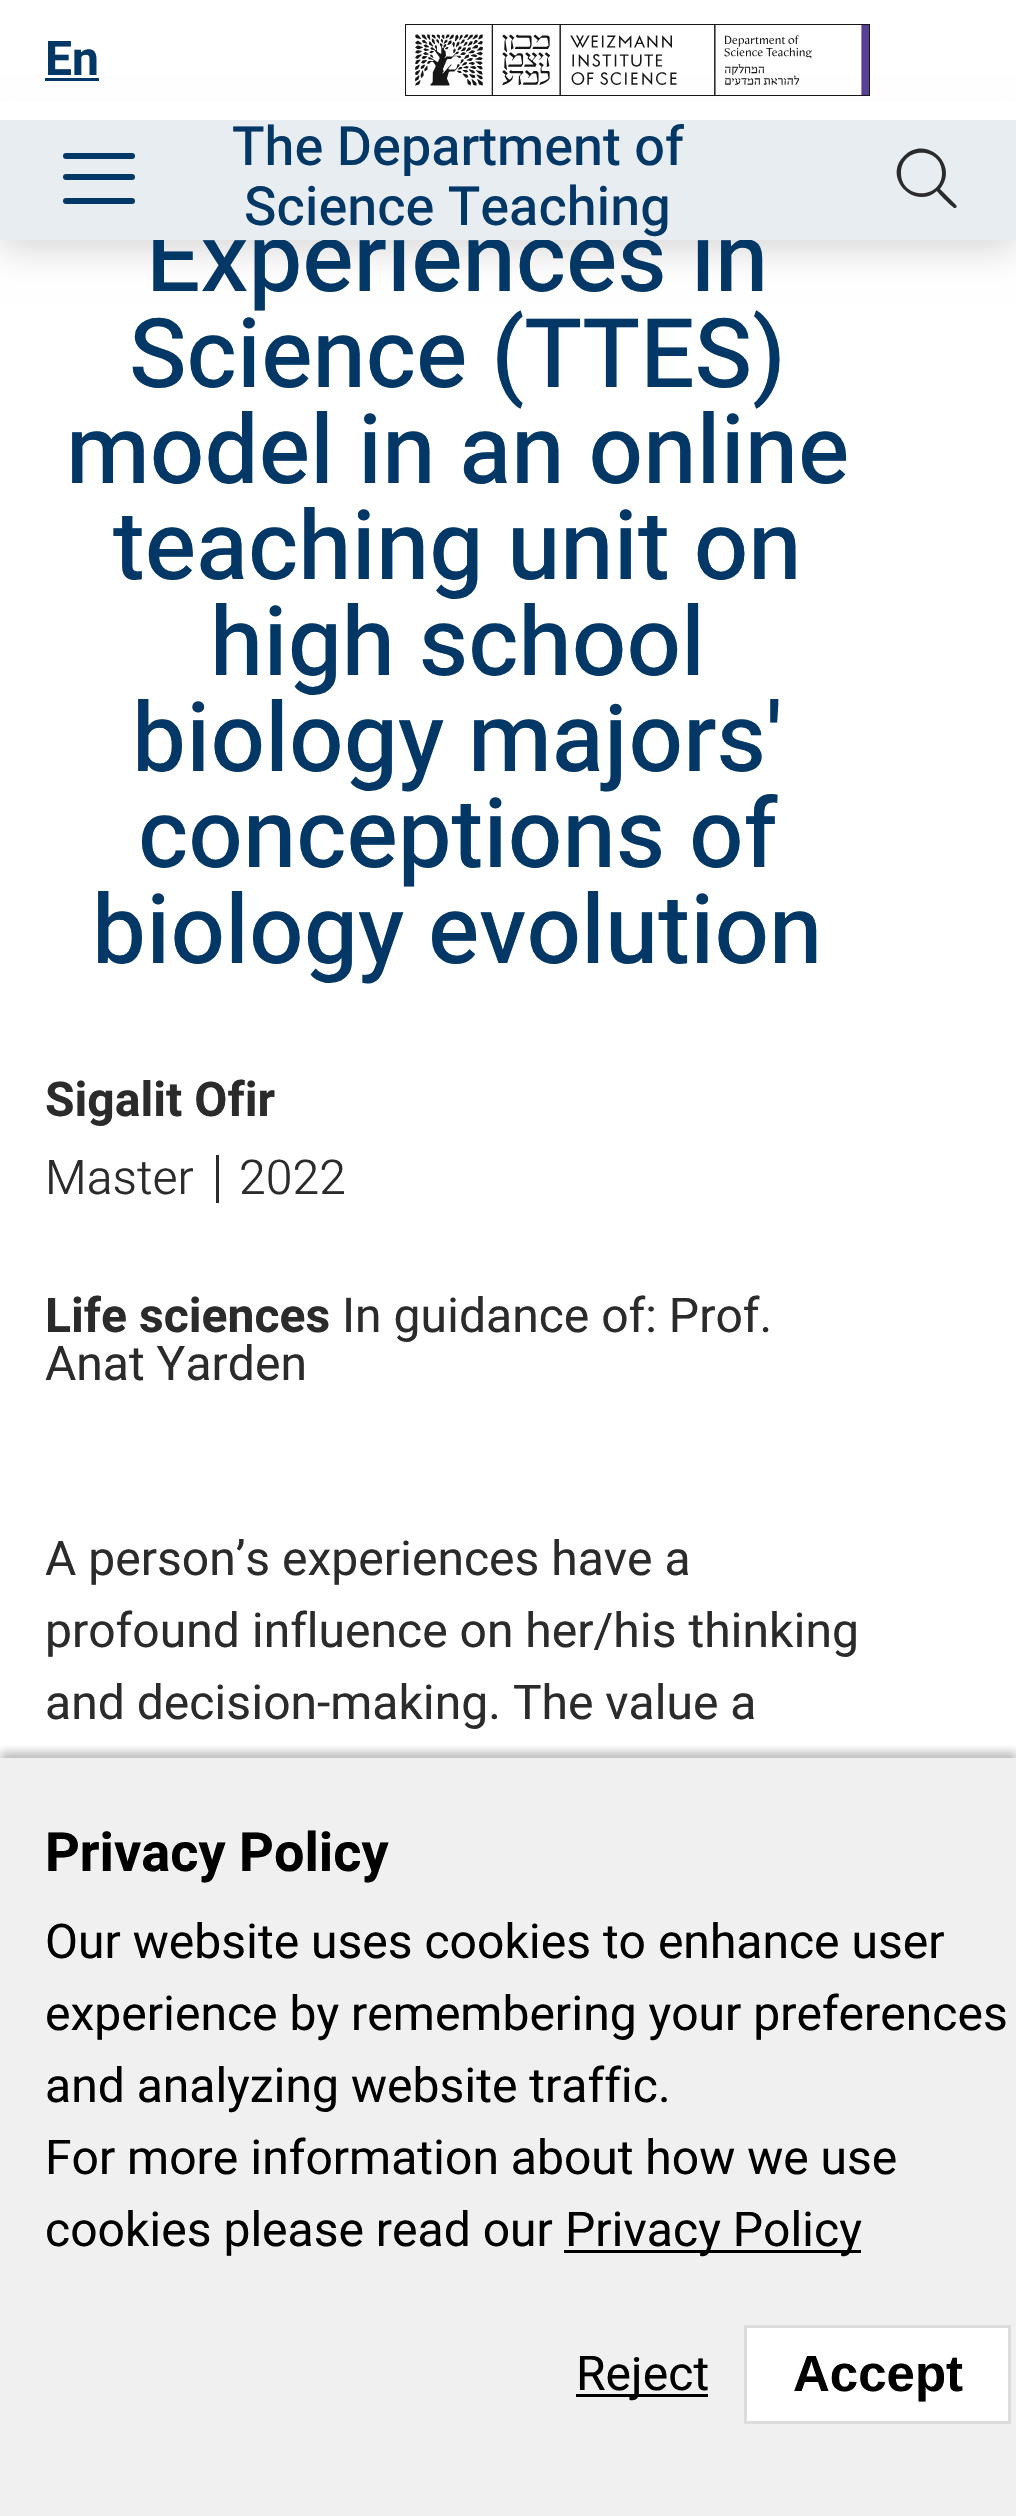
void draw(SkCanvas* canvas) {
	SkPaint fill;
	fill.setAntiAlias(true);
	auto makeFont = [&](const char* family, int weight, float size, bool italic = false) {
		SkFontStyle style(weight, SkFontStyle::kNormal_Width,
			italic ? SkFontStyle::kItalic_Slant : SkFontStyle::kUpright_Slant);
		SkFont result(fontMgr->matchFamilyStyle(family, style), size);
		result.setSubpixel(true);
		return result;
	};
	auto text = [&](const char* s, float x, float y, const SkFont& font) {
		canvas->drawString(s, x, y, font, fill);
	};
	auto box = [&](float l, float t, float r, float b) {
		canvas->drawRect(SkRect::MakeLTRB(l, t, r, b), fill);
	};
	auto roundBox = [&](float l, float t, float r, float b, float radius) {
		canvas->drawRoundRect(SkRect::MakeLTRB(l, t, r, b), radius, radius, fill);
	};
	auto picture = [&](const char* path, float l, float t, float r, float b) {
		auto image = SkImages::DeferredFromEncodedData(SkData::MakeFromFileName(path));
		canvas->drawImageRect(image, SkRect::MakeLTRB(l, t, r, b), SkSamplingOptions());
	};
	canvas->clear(0xFFFFFFFF);
	fill.setColor(0x29000000);
	fill.setMaskFilter(SkMaskFilter::MakeBlur(kNormal_SkBlurStyle, 18));
	canvas->drawRect(SkRect::MakeLTRB(0, 129, 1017, 249), fill);
	fill.setMaskFilter(nullptr);
	fill.setColor(0xFFFFFFFF);
	box(0, 101, 1016, 120);
	fill.setColor(0xFF033766);
	box(45, 78, 99, 81);
	picture("image0.png", 405, 24, 870, 96);
	fill.setColor(0xFF2B2B2B);
	box(216, 1155, 219, 1203);
	fill.setColor(0xFFF0F0F0);
	box(0, 1758, 1016, 2516);
	canvas->save();
	canvas->clipRect(SkRect::MakeLTRB(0, 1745, 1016, 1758));
	fill.setColor(0x6B5F5F5F);
	fill.setMaskFilter(SkMaskFilter::MakeBlur(kNormal_SkBlurStyle, 4.5f));
	canvas->drawRect(SkRect::MakeLTRB(0, 1752, 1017, 2511), fill);
	fill.setMaskFilter(nullptr);
	canvas->restore();
	fill.setColor(0xFF000000);
	box(564, 2250, 861, 2253);
	box(576, 2394, 708, 2397);
	fill.setColor(0xFFFFFFFF);
	canvas->drawRect(SkRect::MakeLTRB(745.5f, 2326.5f, 1009.5f, 2422.5f), fill);
	fill.setStyle(SkPaint::kStroke_Style);
	fill.setStrokeWidth(3);
	fill.setColor(0xFFDCDCDC);
	canvas->drawRect(SkRect::MakeLTRB(745.5f, 2326.5f, 1009.5f, 2422.5f), fill);
	auto font1 = makeFont("Heebo", 700, 48);
	fill.setStyle(SkPaint::kFill_Style);
	fill.setColor(0xFF033766);
	text("En", 45, 75, font1);
	auto font2 = makeFont("Heebo", 500, 96);
	text("Experiences in", 146, 291, font2);
	fill.setColor(0xFFE8EDF1);
	box(0, 120, 1016, 240);
	fill.setColor(0xFF2B2B2B);
	canvas->drawPath(SkPathBuilder().moveTo(942, 173).cubicTo(942, 146, 901, 146, 901, 173).cubicTo(901, 200, 942, 200, 942, 173).close().moveTo(937, 191).cubicTo(914, 211, 882, 177, 904, 156).cubicTo(926, 134, 960, 165, 940, 189).lineTo(956, 205).cubicTo(957, 206, 957, 208, 955, 208).cubicTo(954, 209, 939, 194, 937, 191).close().detach(), fill);
	fill.setColor(0xFF033766);
	roundBox(63, 198, 135, 204, 3);
	roundBox(63, 174, 135, 180, 3);
	roundBox(63, 153, 135, 159, 3);
	auto font3 = makeFont("Heebo", 500, 54);
	text("Science Teaching", 244, 225, font3);
	text("The Department of", 232, 165, font3);
	text("Science (TTES)", 129, 387, font2);
	text("model in an online", 66, 483, font2);
	text("teaching unit on", 113, 579, font2);
	text("high school", 210, 675, font2);
	text("biology majors'", 132, 771, font2);
	text("conceptions of", 138, 867, font2);
	text("biology evolution", 92, 963, font2);
	fill.setColor(0xFF2B2B2B);
	text("Sigalit Ofir", 45, 1116, font1);
	auto font4 = makeFont("Heebo", 300, 48);
	text("Master", 45, 1194, font4);
	text("2022", 239, 1194, font4);
	text("Life sciences", 45, 1332, font1);
	auto font5 = makeFont("Heebo", 400, 48);
	text("In guidance of: Prof.", 342, 1332, font5);
	text("Anat Yarden", 45, 1380, font5);
	text("A person’s experiences have a", 45, 1575, font5);
	text("profound influence on her/his thinking", 45, 1647, font5);
	text("and decision-making. The value a", 45, 1719, font5);
	auto font6 = makeFont("Heebo", 700, 54);
	fill.setColor(0xFF000000);
	text("Privacy Policy", 45, 1871, font6);
	text("Our website uses cookies to enhance user", 45, 1958, font5);
	text("experience by remembering your preferences", 45, 2030, font5);
	text("and analyzing website traffic.", 45, 2102, font5);
	text("For more information about how we use", 45, 2174, font5);
	text("cookies please read our", 45, 2246, font5);
	text("Privacy Policy", 565, 2246, font5);
	text("Reject", 576, 2390, font5);
	auto font7 = makeFont("Liberation Sans", 700, 51);
	text("Accept", 793, 2391, font7);
}
